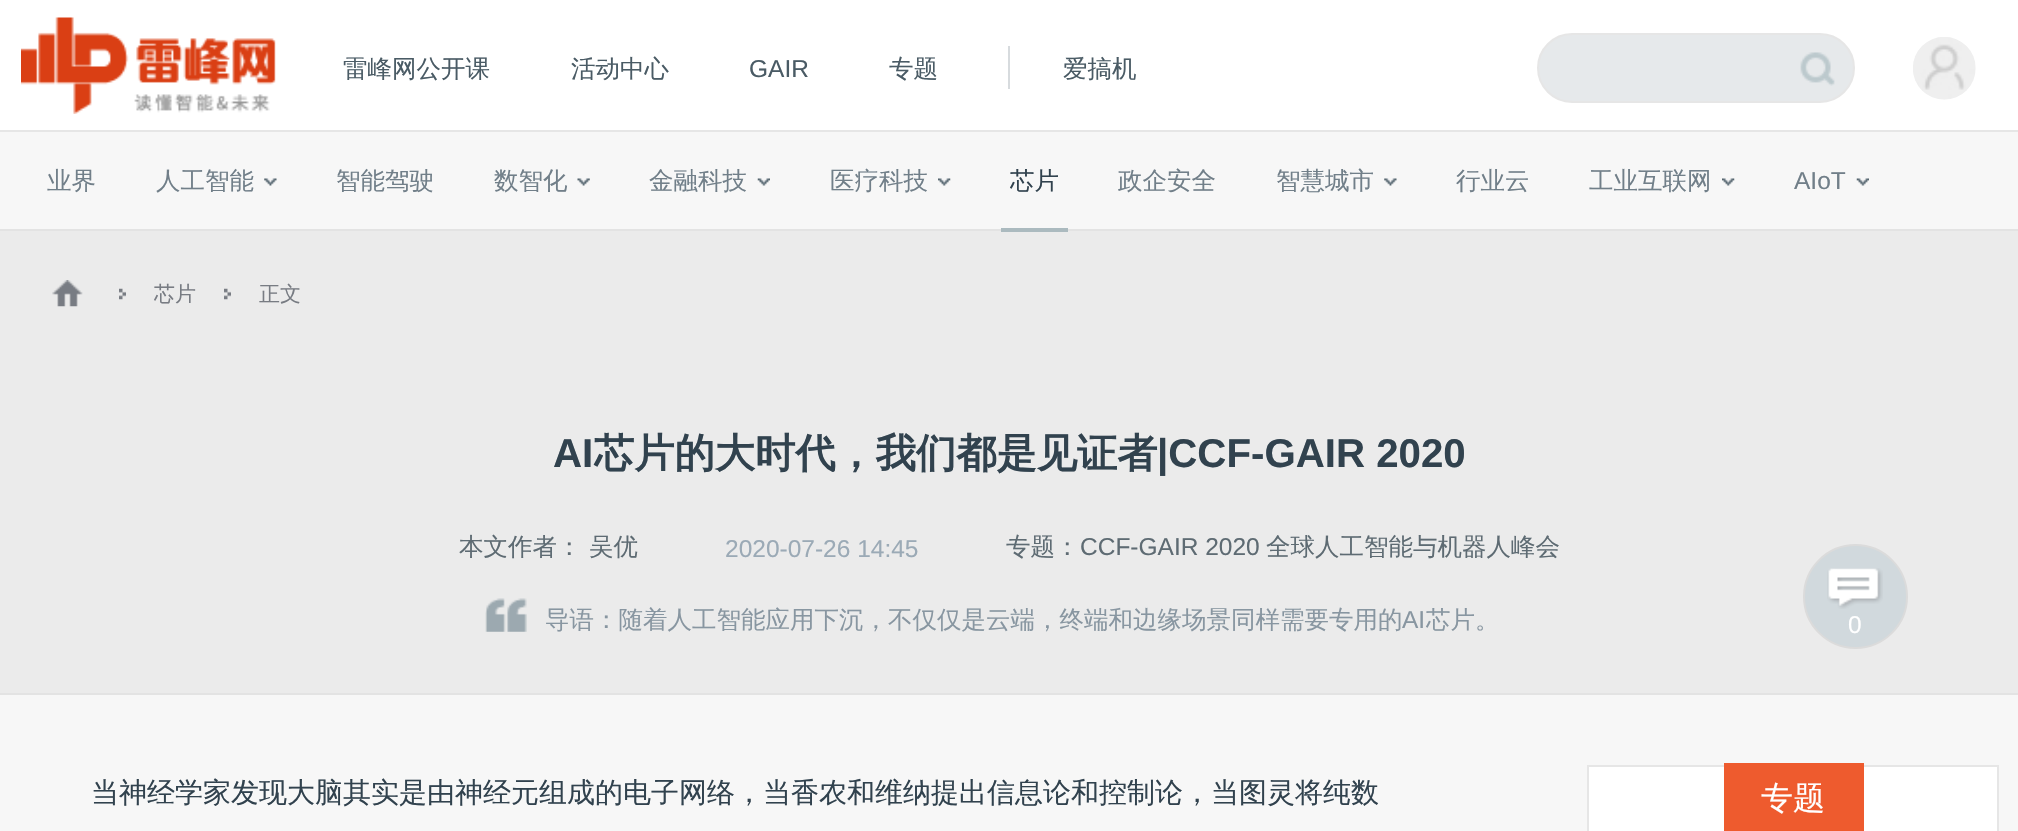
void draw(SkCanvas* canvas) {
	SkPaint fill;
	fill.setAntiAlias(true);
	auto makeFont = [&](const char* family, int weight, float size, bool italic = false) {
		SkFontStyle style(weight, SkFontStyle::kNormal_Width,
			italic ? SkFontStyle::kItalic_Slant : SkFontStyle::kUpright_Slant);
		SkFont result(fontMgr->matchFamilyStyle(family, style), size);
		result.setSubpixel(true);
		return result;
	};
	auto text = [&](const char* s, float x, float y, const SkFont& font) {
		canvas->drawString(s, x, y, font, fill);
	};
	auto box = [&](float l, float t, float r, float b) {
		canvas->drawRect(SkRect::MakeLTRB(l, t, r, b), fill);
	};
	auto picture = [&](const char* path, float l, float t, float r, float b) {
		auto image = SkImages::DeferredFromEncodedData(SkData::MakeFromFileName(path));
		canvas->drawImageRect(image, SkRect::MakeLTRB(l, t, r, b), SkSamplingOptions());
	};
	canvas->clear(0xFFF7F7F7);
	fill.setColor(0xFFFFFFFF);
	box(0, 0, 2018, 130);
	fill.setColor(0xFFE6E6E6);
	box(0, 130, 2018, 132);
	picture("image0.png", 21, 17, 276, 114);
	fill.setColor(0xFFD7DBDE);
	box(1008, 46, 1010, 89);
	fill.setColor(0xFFE6E9EB);
	canvas->drawRoundRect(SkRect::MakeLTRB(1538, 34, 1854, 102), 34, 34, fill);
	fill.setStyle(SkPaint::kStroke_Style);
	fill.setStrokeWidth(2);
	fill.setColor(0xFFE6E6E6);
	canvas->drawRoundRect(SkRect::MakeLTRB(1538, 34, 1854, 102), 34, 34, fill);
	picture("image1.png", 1800, 52, 1835, 86);
	picture("image2.png", 1913, 37, 1976, 100);
	picture("image3.png", 264, 178, 277, 186);
	picture("image4.png", 577, 178, 590, 186);
	picture("image5.png", 757, 178, 770, 186);
	picture("image6.png", 938, 178, 951, 186);
	fill.setStyle(SkPaint::kFill_Style);
	fill.setColor(0xFFEBEBEB);
	box(0, 231, 2018, 693);
	fill.setColor(0xFFE3E3E3);
	box(0, 229, 2018, 231);
	fill.setColor(0xFFABBABF);
	box(1001, 228, 1068, 232);
	picture("image7.png", 1384, 178, 1397, 186);
	picture("image6.png", 1722, 178, 1735, 186);
	picture("image8.png", 1856, 178, 1869, 186);
	picture("image9.png", 52, 280, 83, 307);
	picture("image10.png", 119, 288, 126, 300);
	picture("image10.png", 224, 288, 231, 300);
	fill.setColor(0xFFE3E3E3);
	box(0, 693, 2018, 695);
	picture("image11.png", 485, 598, 527, 632);
	fill.setColor(0xFFFFFFFF);
	canvas->drawRect(SkRect::MakeLTRB(1588, 766, 1998, 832), fill);
	fill.setStyle(SkPaint::kStroke_Style);
	fill.setColor(0xFFE6E6E6);
	canvas->drawRect(SkRect::MakeLTRB(1588, 766, 1998, 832), fill);
	fill.setStyle(SkPaint::kFill_Style);
	fill.setColor(0xFFEE5B2E);
	box(1724, 763, 1864, 831);
	fill.setColor(0xFFD1D9DD);
	canvas->drawCircle(1855.5f, 596.5f, 51.5f, fill);
	fill.setStyle(SkPaint::kStroke_Style);
	fill.setColor(0xFFDBDBDB);
	canvas->drawCircle(1855.5f, 596.5f, 51.5f, fill);
	picture("image12.png", 1827, 568, 1883, 609);
	auto font1 = makeFont("WenQuanYi Zen Hei", 500, 24.5f);
	fill.setStyle(SkPaint::kFill_Style);
	fill.setColor(0xFF4A5B65);
	text("雷峰网公开课", 343, 77, font1);
	text("活动中心", 571, 77, font1);
	auto font2 = makeFont("Liberation Sans", 400, 24.5f);
	text("GAIR", 749, 77, font2);
	text("专题", 889, 77, font1);
	text("爱搞机", 1063, 77, font1);
	fill.setColor(0xFF717F89);
	text("业界", 47, 189, font1);
	text("人工智能", 156, 189, font1);
	text("智能驾驶", 336, 189, font1);
	text("数智化", 494, 189, font1);
	text("金融科技", 649, 189, font1);
	text("医疗科技", 830, 189, font1);
	fill.setColor(0xFF31424E);
	text("芯片", 1010, 189, font1);
	fill.setColor(0xFF717F89);
	text("政企安全", 1118, 189, font1);
	text("智慧城市", 1276, 189, font1);
	text("行业云", 1456, 189, font1);
	text("工业互联网", 1589, 189, font1);
	text("AIoT", 1794, 189, font2);
	auto font3 = makeFont("WenQuanYi Zen Hei", 500, 21);
	fill.setColor(0xFF787C83);
	text("芯片", 154, 301, font3);
	text("正文", 259, 301, font3);
	auto font4 = makeFont("Liberation Sans", 700, 40.25f);
	fill.setColor(0xFF31424E);
	text("AI", 553, 467, font4);
	auto font5 = makeFont("WenQuanYi Zen Hei", 700, 40.25f);
	text("芯片的大时代，我们都是见证者", 594, 467, font5);
	text("|CCF-GAIR 2020", 1157, 467, font4);
	fill.setColor(0xFF5E6B73);
	text("本文作者：", 459, 555, font1);
	text("吴优", 589, 555, font1);
	fill.setColor(0xFF9BAAB6);
	text("2020-07-26 14:45", 725, 557, font2);
	fill.setColor(0xFF5E6B73);
	text("专题：", 1006, 555, font1);
	text("CCF-GAIR 2020", 1080, 555, font2);
	text("全球人工智能与机器人峰会", 1266, 555, font1);
	fill.setColor(0xFF8896A1);
	text("导语：随着人工智能应用下沉，不仅仅是云端，终端和边缘场景同样需要专用的", 545, 628, font1);
	text("AI", 1402, 628, font2);
	text("芯片。", 1426, 628, font1);
	auto font6 = makeFont("WenQuanYi Zen Hei", 500, 28);
	fill.setColor(0xFF31424E);
	text("当神经学家发现大脑其实是由神经元组成的电子网络，当香农和维纳提出信息论和控制论，当图灵将纯数", 91, 802, font6);
	auto font7 = makeFont("WenQuanYi Zen Hei", 500, 32);
	fill.setColor(0xFFFFFFFF);
	text("专题", 1761, 809, font7);
	text("0", 1848, 633, font2);
}
